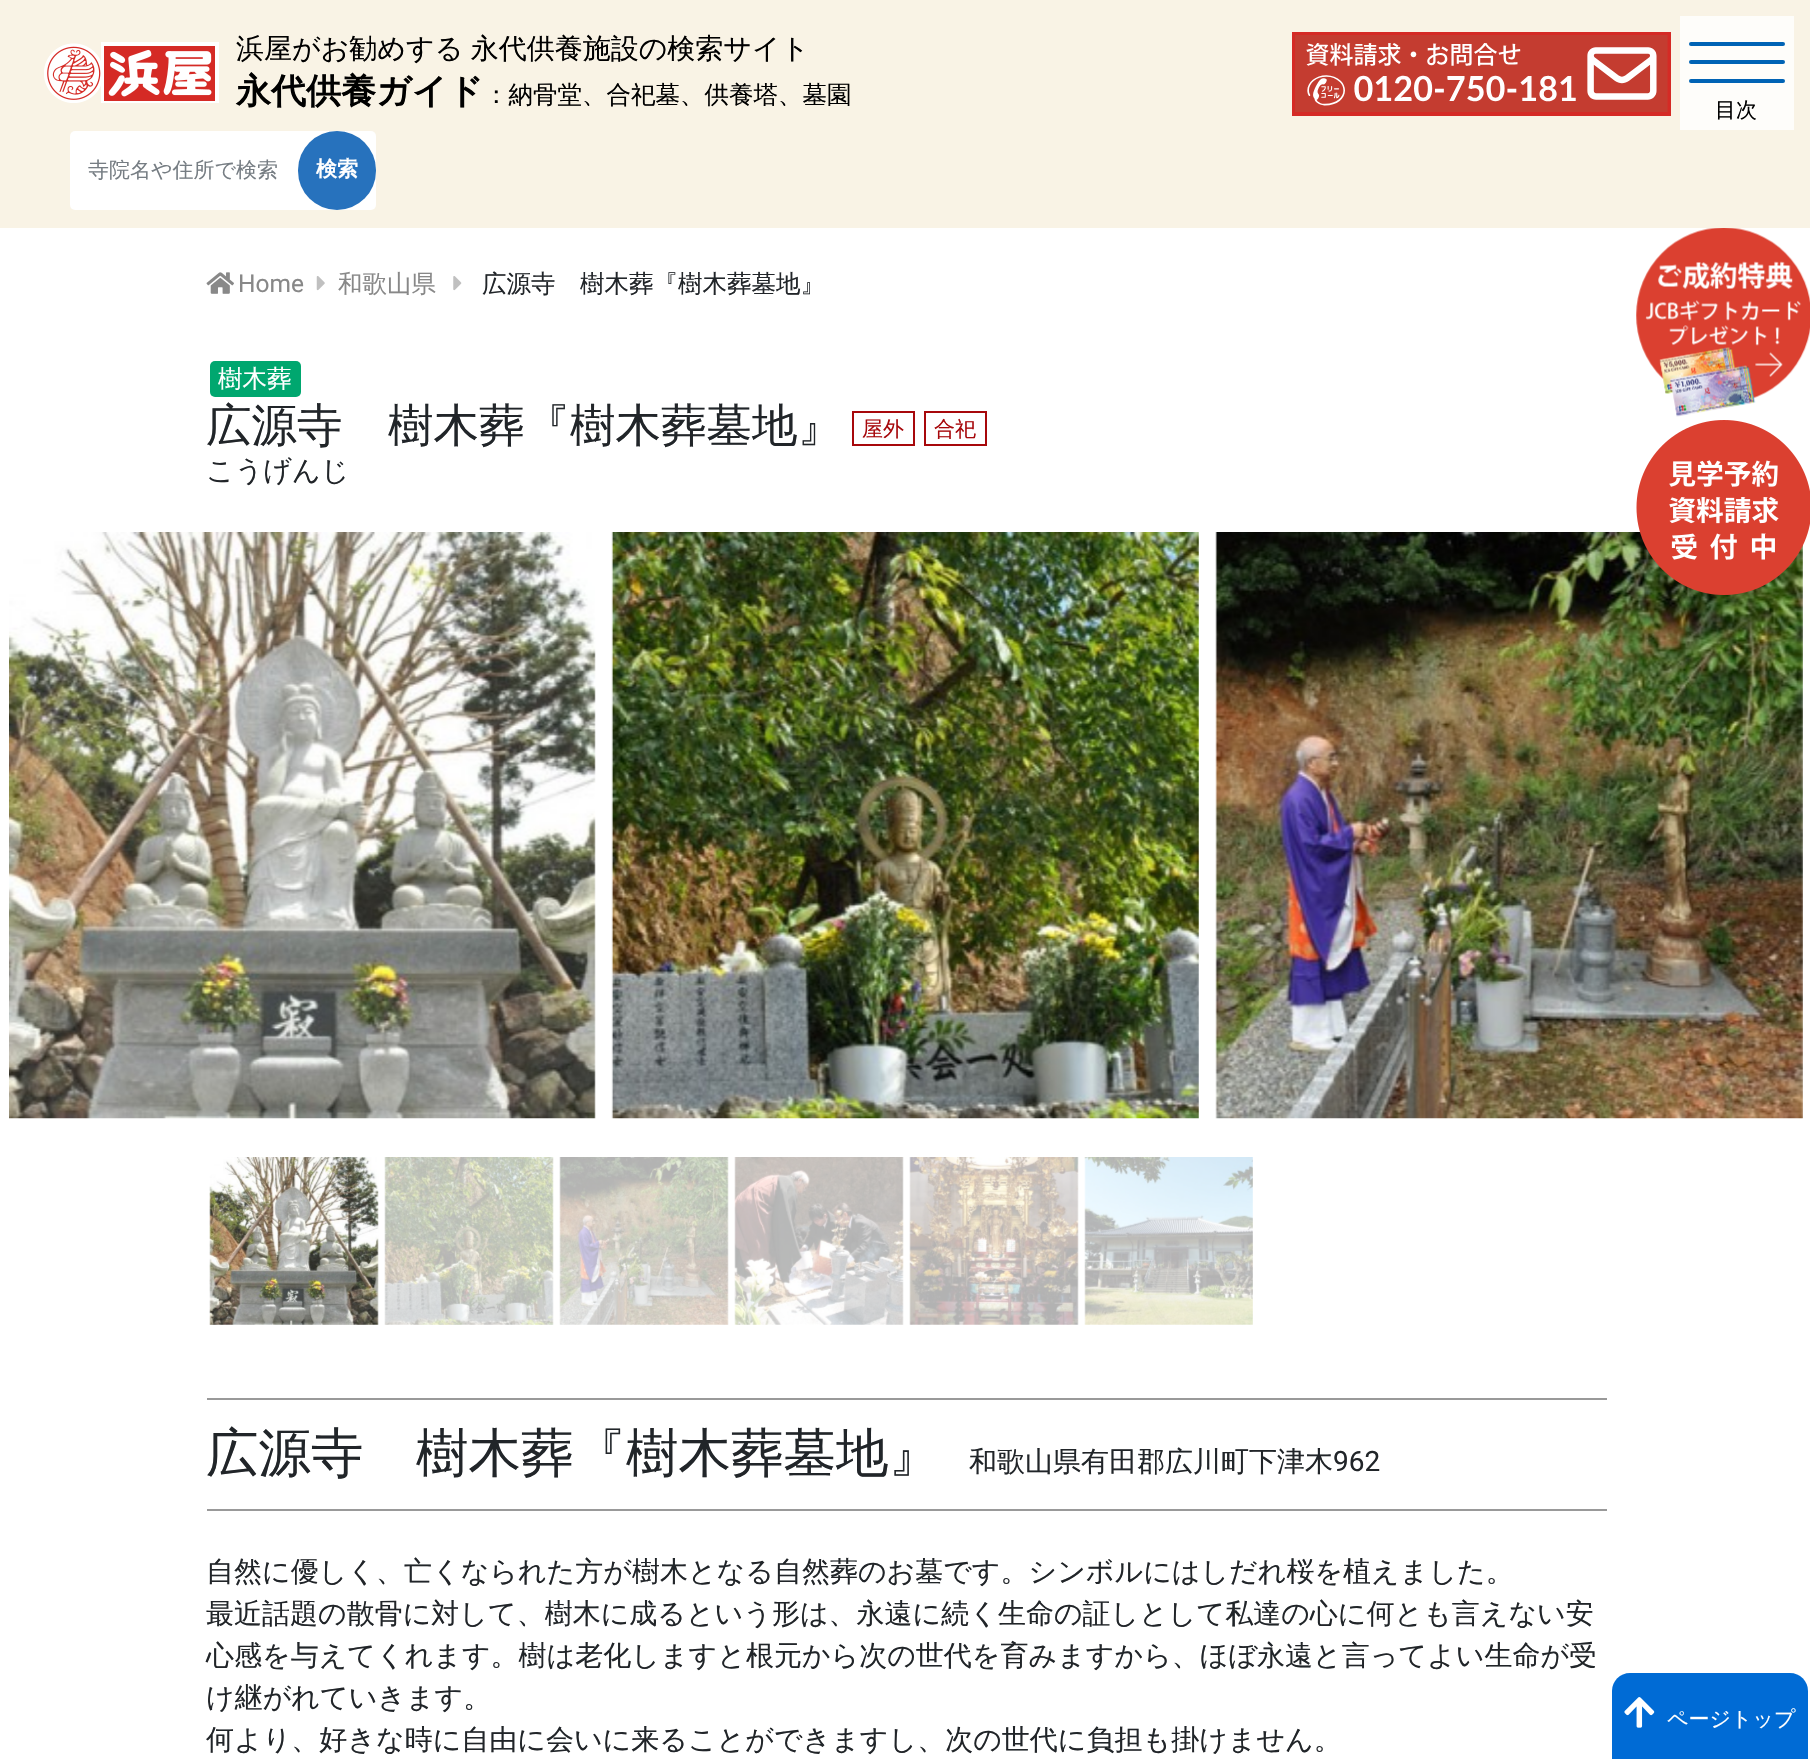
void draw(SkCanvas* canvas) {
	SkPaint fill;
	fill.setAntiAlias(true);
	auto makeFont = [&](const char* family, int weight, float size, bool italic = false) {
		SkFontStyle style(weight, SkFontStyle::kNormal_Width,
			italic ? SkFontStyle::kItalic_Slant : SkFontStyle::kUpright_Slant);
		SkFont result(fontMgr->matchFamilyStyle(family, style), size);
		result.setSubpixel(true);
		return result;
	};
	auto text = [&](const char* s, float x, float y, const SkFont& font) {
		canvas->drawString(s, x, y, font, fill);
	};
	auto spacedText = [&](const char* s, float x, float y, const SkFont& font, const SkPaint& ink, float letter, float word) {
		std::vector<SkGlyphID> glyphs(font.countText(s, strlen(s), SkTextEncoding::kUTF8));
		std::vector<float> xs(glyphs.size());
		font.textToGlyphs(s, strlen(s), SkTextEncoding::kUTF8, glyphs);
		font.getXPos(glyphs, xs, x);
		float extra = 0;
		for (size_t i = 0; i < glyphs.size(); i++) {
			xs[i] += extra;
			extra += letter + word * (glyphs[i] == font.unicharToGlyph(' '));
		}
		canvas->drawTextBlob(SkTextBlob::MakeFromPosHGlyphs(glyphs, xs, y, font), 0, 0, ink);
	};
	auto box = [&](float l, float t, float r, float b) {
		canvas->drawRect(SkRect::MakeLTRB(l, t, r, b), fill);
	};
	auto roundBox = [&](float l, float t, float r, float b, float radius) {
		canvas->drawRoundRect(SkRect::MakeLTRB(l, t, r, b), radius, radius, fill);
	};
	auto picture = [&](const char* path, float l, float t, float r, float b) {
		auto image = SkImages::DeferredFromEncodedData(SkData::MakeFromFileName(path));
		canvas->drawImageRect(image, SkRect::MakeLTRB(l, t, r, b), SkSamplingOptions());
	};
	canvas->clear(0xFFFFFFFF);
	fill.setColor(0xFFF9F3E5);
	box(0, 0, 1810, 228);
	picture("image0.png", 44, 42, 219, 103);
	fill.setColor(0xFFD52A25);
	box(1292, 32, 1671, 116);
	picture("image1.png", 1295, 35, 1668, 112);
	fill.setColor(0xFFFFFFFF);
	roundBox(70, 131, 376, 210, 5);
	fill.setColor(0xFF2772BD);
	roundBox(298, 131, 376, 210, 39);
	fill.setColor(0xFFFEFDFA);
	box(1680, 16, 1794, 130);
	fill.setColor(0xFF0063B5);
	roundBox(1689, 42, 1785, 46, 2);
	roundBox(1689, 60, 1785, 64, 2);
	roundBox(1689, 79, 1785, 83, 2);
	picture("image2.png", 206, 272, 234, 294);
	picture("image3.png", 316, 276, 325, 291);
	picture("image4.png", 453, 276, 462, 291);
	fill.setColor(0xFF00A76F);
	roundBox(210, 361, 301, 397, 5);
	fill.setStyle(SkPaint::kStroke_Style);
	fill.setStrokeWidth(2);
	fill.setColor(0xFFA7080B);
	canvas->drawRect(SkRect::MakeLTRB(853, 412, 914, 445), fill);
	canvas->drawRect(SkRect::MakeLTRB(925, 412, 986, 445), fill);
	picture("image5.png", 9, 532, 596, 1119);
	picture("image6.png", 611, 532, 1199, 1119);
	picture("image7.png", 1215, 532, 1803, 1119);
	picture("image8.png", 209, 1157, 379, 1325);
	picture("image9.png", 384, 1157, 554, 1325);
	picture("image10.png", 559, 1157, 729, 1325);
	picture("image11.png", 734, 1157, 904, 1325);
	picture("image12.png", 909, 1157, 1079, 1325);
	picture("image13.png", 1084, 1157, 1253, 1325);
	fill.setStyle(SkPaint::kFill_Style);
	fill.setColor(0xFF999999);
	box(207, 1398, 1607, 1400);
	box(207, 1509, 1607, 1511);
	picture("image14.png", 1636, 228, 1810, 417);
	picture("image15.png", 1636, 420, 1810, 595);
	fill.setColor(0xFF006BD5);
	canvas->drawPath(SkPathBuilder().moveTo(1630, 1673).lineTo(1790, 1673).cubicTo(1800, 1673, 1808, 1681, 1808, 1691).lineTo(1808, 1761).lineTo(1612, 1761).lineTo(1612, 1691).cubicTo(1612, 1681, 1620, 1673, 1630, 1673).close().detach(), fill);
	picture("image16.png", 1624, 1697, 1655, 1728);
	auto font1 = makeFont("WenQuanYi Zen Hei", 500, 28);
	fill.setColor(0xFF000000);
	spacedText("浜屋がお勧めする 永代供養施設の検索サイト", 236, 58, font1, fill, 0, -1);
	auto font2 = makeFont("WenQuanYi Zen Hei", 700, 35);
	text("永代供養ガイド", 236, 103, font2);
	auto font3 = makeFont("WenQuanYi Zen Hei", 500, 24.5f);
	text("：納骨堂、合祀墓、供養塔、墓園", 484, 103, font3);
	auto font4 = makeFont("WenQuanYi Zen Hei", 500, 21);
	fill.setColor(0xFF767D83);
	text("寺院名や住所で検索", 88, 177, font4);
	auto font5 = makeFont("WenQuanYi Zen Hei", 700, 21);
	fill.setColor(0xFFFFFFFF);
	text("検索", 316, 176, font5);
	fill.setColor(0xFF000000);
	text("目次", 1715, 117, font4);
	auto font6 = makeFont("Roboto", 400, 24.5f);
	fill.setColor(0xFF888888);
	text("Home", 238, 292, font6);
	text("和歌山県", 338, 292, font3);
	fill.setColor(0xFF212529);
	text("広源寺　樹木葬『樹木葬墓地』", 482, 292, font3);
	fill.setColor(0xFFFFFFFF);
	text("樹木葬", 218, 387, font3);
	auto font7 = makeFont("WenQuanYi Zen Hei", 500, 45.5f);
	fill.setColor(0xFF212529);
	text("広源寺　樹木葬『樹木葬墓地』", 206, 441, font7);
	text("こうげんじ", 206, 480, font1);
	fill.setColor(0xFFA7080B);
	text("屋外", 862, 436, font4);
	text("合祀", 934, 436, font4);
	auto font8 = makeFont("WenQuanYi Zen Hei", 500, 52.5f);
	fill.setColor(0xFF212529);
	text("広源寺　樹木葬『樹木葬墓地』", 206, 1471, font8);
	text("和歌山県有田郡広川町下津木", 969, 1471, font1);
	auto font9 = makeFont("Roboto", 400, 28);
	text("962", 1333, 1471, font9);
	text("自然に優しく、亡くなられた方が樹木となる自然葬のお墓です。シンボルにはしだれ桜を植えました。", 206, 1581, font1);
	text("最近話題の散骨に対して、樹木に成るという形は、永遠に続く生命の証しとして私達の心に何とも言えない安", 206, 1623, font1);
	text("心感を与えてくれます。樹は老化しますと根元から次の世代を育みますから、ほぼ永遠と言ってよい生命が受", 206, 1665, font1);
	text("け継がれていきます。", 206, 1707, font1);
	text("何より、好きな時に自由に会いに来ることができますし、次の世代に負担も掛けません。", 206, 1749, font1);
	fill.setColor(0xFFFFFFFF);
	text("ページトップ", 1667, 1726, font4);
}
